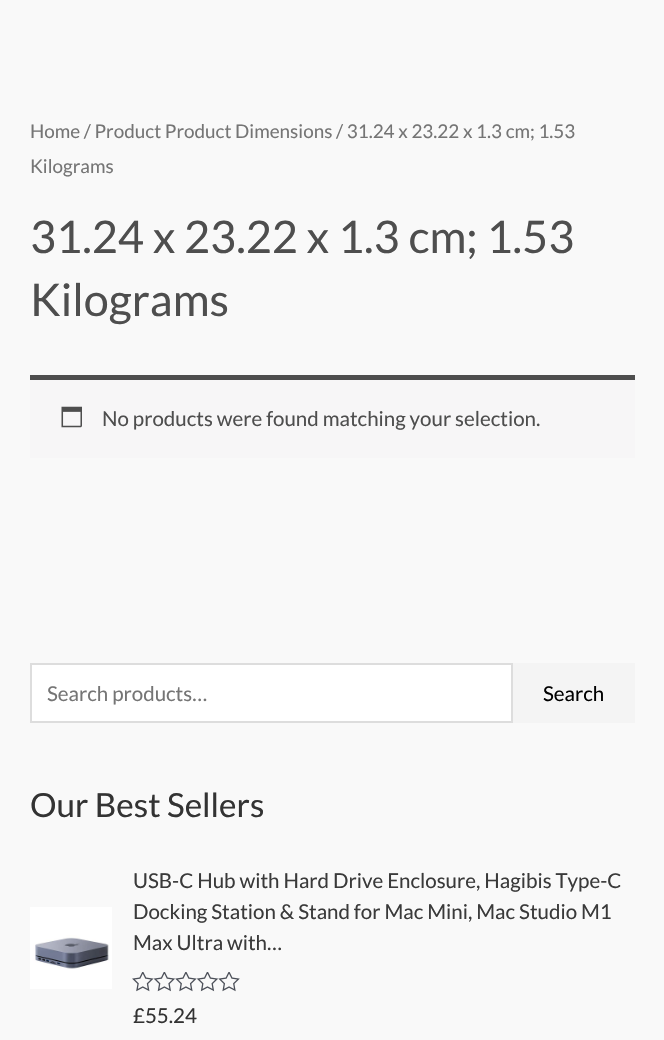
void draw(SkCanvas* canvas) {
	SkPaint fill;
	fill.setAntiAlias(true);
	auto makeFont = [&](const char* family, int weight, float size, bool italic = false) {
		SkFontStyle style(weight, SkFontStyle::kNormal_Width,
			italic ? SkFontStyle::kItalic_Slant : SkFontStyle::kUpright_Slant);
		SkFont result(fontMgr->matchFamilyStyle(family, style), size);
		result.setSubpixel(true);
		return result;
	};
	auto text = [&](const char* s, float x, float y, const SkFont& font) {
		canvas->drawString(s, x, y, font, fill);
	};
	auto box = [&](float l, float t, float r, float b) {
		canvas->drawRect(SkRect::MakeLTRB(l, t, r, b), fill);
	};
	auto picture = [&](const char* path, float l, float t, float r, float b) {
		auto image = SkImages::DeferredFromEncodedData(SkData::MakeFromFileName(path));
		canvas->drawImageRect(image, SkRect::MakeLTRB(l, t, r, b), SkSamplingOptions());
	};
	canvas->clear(0xFFF9F9F9);
	fill.setColor(0xFFF7F6F7);
	box(30, 380, 635, 458);
	fill.setColor(0xFF4E4E4E);
	box(30, 375, 635, 380);
	picture("image0.png", 61, 406, 82, 428);
	fill.setColor(0xFFFFFFFF);
	canvas->drawRect(SkRect::MakeLTRB(31, 664, 512, 722), fill);
	fill.setStyle(SkPaint::kStroke_Style);
	fill.setStrokeWidth(2);
	fill.setColor(0xFFDDDDDD);
	canvas->drawRect(SkRect::MakeLTRB(31, 664, 512, 722), fill);
	fill.setStyle(SkPaint::kFill_Style);
	fill.setColor(0xFFF4F4F4);
	box(513, 663, 635, 723);
	picture("image1.png", 30, 907, 112, 989);
	picture("image2.png", 132, 972, 240, 992);
	auto font1 = makeFont("Lato", 400, 18.9f);
	fill.setColor(0xFF757575);
	text("Home / Product Product Dimensions / 31.24 x 23.22 x 1.3 cm; 1.53", 30, 138, font1);
	text("Kilograms", 30, 173, font1);
	auto font2 = makeFont("Lato", 400, 45);
	fill.setColor(0xFF4E4E4E);
	text("31.24 x 23.22 x 1.3 cm; 1.53", 30, 253, font2);
	text("Kilograms", 30, 316, font2);
	auto font3 = makeFont("Lato", 400, 20.5f);
	text("No products were found matching your selection.", 102, 426, font3);
	fill.setColor(0xFF757575);
	text("Search products…", 47, 701, font3);
	fill.setColor(0xFF000000);
	text("Search", 543, 701, font3);
	auto font4 = makeFont("Lato", 400, 33.25f);
	fill.setColor(0xFF333333);
	text("Our Best Sellers", 30, 817, font4);
	fill.setColor(0xFF3A3A3A);
	text("USB-C Hub with Hard Drive Enclosure, Hagibis Type-C", 133, 888, font3);
	text("Docking Station & Stand for Mac Mini, Mac Studio M1", 133, 919, font3);
	text("Max Ultra with…", 133, 950, font3);
	fill.setColor(0xFF333333);
	text("£55.24", 133, 1023, font3);
}
